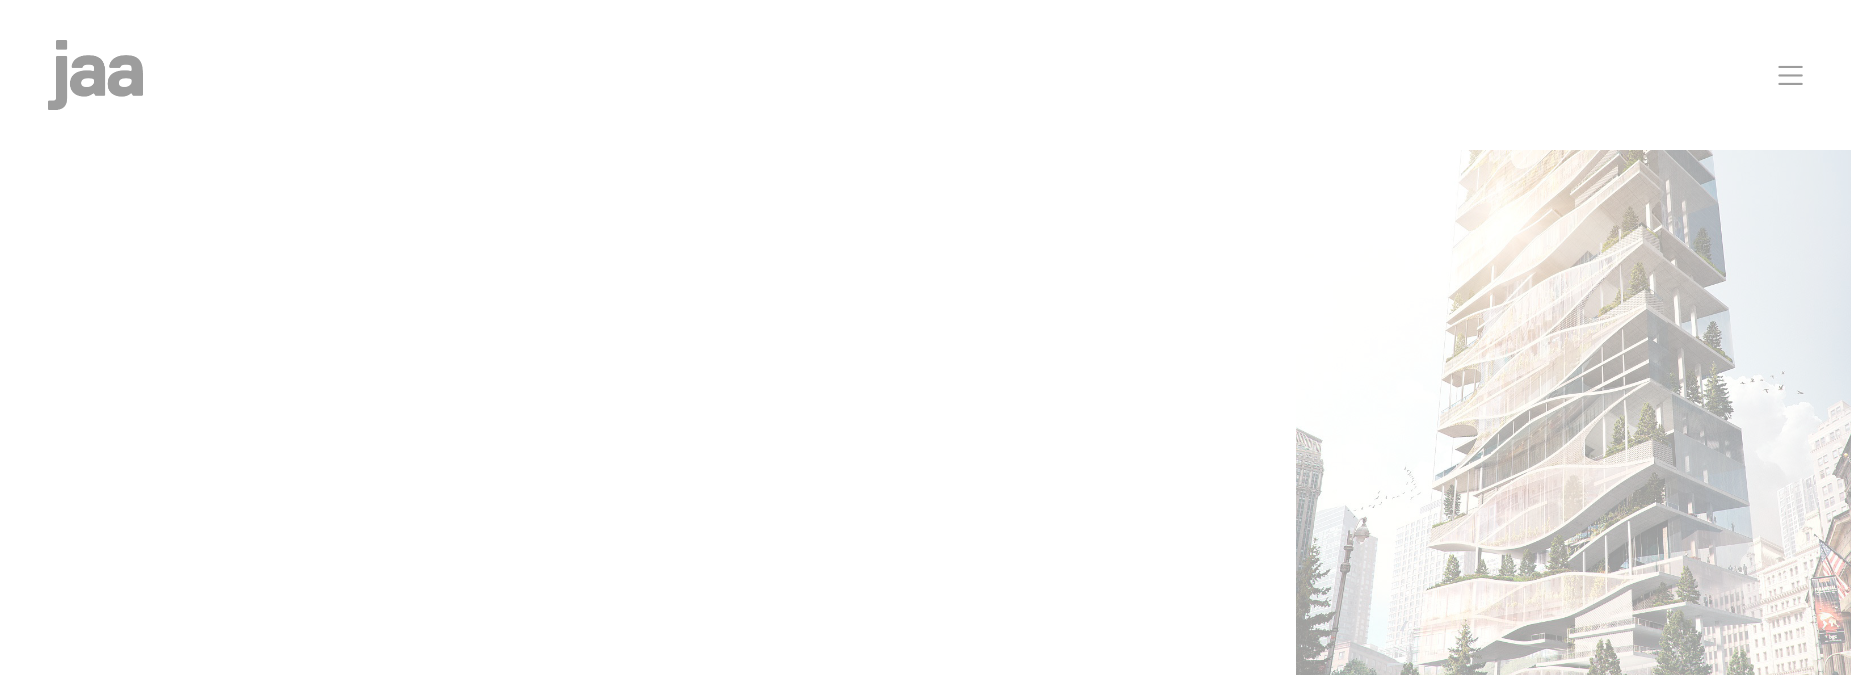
void draw(SkCanvas* canvas) {
	SkPaint fill;
	fill.setAntiAlias(true);
	auto picture = [&](const char* path, float l, float t, float r, float b) {
		auto image = SkImages::DeferredFromEncodedData(SkData::MakeFromFileName(path));
		canvas->drawImageRect(image, SkRect::MakeLTRB(l, t, r, b), SkSamplingOptions());
	};
	canvas->clear(0xFFFFFFFF);
	picture("image0.png", 48, 40, 143, 110);
	picture("image1.png", 1778, 65, 1803, 85);
	picture("image2.png", 1296, 150, 1851, 675);
}
